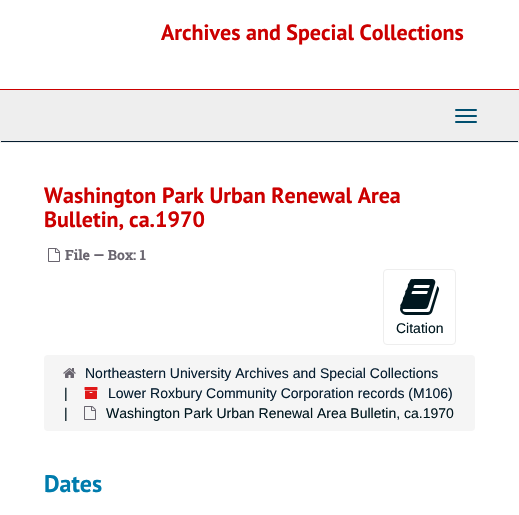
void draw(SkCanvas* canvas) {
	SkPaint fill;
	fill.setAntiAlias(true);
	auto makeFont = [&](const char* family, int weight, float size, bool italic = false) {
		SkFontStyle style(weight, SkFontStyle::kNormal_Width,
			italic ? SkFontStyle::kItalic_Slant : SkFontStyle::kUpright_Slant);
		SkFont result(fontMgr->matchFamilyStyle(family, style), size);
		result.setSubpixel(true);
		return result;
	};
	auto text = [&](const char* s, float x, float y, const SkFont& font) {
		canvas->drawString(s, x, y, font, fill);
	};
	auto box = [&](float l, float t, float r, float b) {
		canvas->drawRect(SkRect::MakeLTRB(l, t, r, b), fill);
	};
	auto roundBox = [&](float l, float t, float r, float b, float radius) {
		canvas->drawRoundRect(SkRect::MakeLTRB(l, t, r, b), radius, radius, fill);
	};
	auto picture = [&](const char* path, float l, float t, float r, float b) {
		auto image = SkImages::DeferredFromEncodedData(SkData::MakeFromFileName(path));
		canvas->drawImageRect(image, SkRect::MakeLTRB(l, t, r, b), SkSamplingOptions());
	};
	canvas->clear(0xFFFFFFFF);
	fill.setColor(0xFFCC0000);
	box(0, 89, 519, 90);
	fill.setColor(0xFFEEEEEE);
	box(0, 90, 519, 143);
	fill.setColor(0xFF041C2F);
	box(1, 141, 518, 142);
	fill.setColor(0xFF004F6F);
	roundBox(455, 109, 477, 111, 1);
	roundBox(455, 115, 477, 117, 1);
	roundBox(455, 121, 477, 123, 1);
	picture("image0.png", 48, 248, 60, 262);
	fill.setStyle(SkPaint::kStroke_Style);
	fill.setStrokeWidth(1);
	fill.setColor(0xFFEEEEEE);
	canvas->drawRoundRect(SkRect::MakeLTRB(383.5f, 269.5f, 455.5f, 344.5f), 3.5f, 3.5f, fill);
	picture("image1.png", 400, 279, 439, 315);
	fill.setStyle(SkPaint::kFill_Style);
	fill.setColor(0xFFF5F5F5);
	roundBox(44, 355, 475, 431, 4);
	picture("image2.png", 63, 368, 76, 378);
	picture("image3.png", 84, 387, 98, 399);
	picture("image4.png", 84, 406, 96, 420);
	auto font1 = makeFont("PT Sans", 700, 22);
	fill.setColor(0xFFCC0000);
	text("Archives and Special Collections", 161, 40, font1);
	text("Washington Park Urban Renewal Area", 44, 203, font1);
	text("Bulletin, ca.1970", 44, 227, font1);
	auto font2 = makeFont("Roboto Slab", 700, 14);
	fill.setColor(0xFF69656F);
	text("File — Box: 1", 65, 260, font2);
	auto font3 = makeFont("Liberation Sans", 400, 14);
	fill.setColor(0xFF00171F);
	text("Citation", 396, 333, font3);
	fill.setColor(0xFF041C2F);
	text("Northeastern University Archives and Special Collections", 85, 378, font3);
	fill.setColor(0xFF00171F);
	text("|", 64, 398, font3);
	fill.setColor(0xFF041C2F);
	text("Lower Roxbury Community Corporation records (M106)", 108, 398, font3);
	fill.setColor(0xFF00171F);
	text("|", 64, 418, font3);
	text("Washington Park Urban Renewal Area Bulletin, ca.1970", 106, 418, font3);
	auto font4 = makeFont("PT Sans", 700, 24);
	fill.setColor(0xFF007CAD);
	text("Dates", 44, 492, font4);
}
